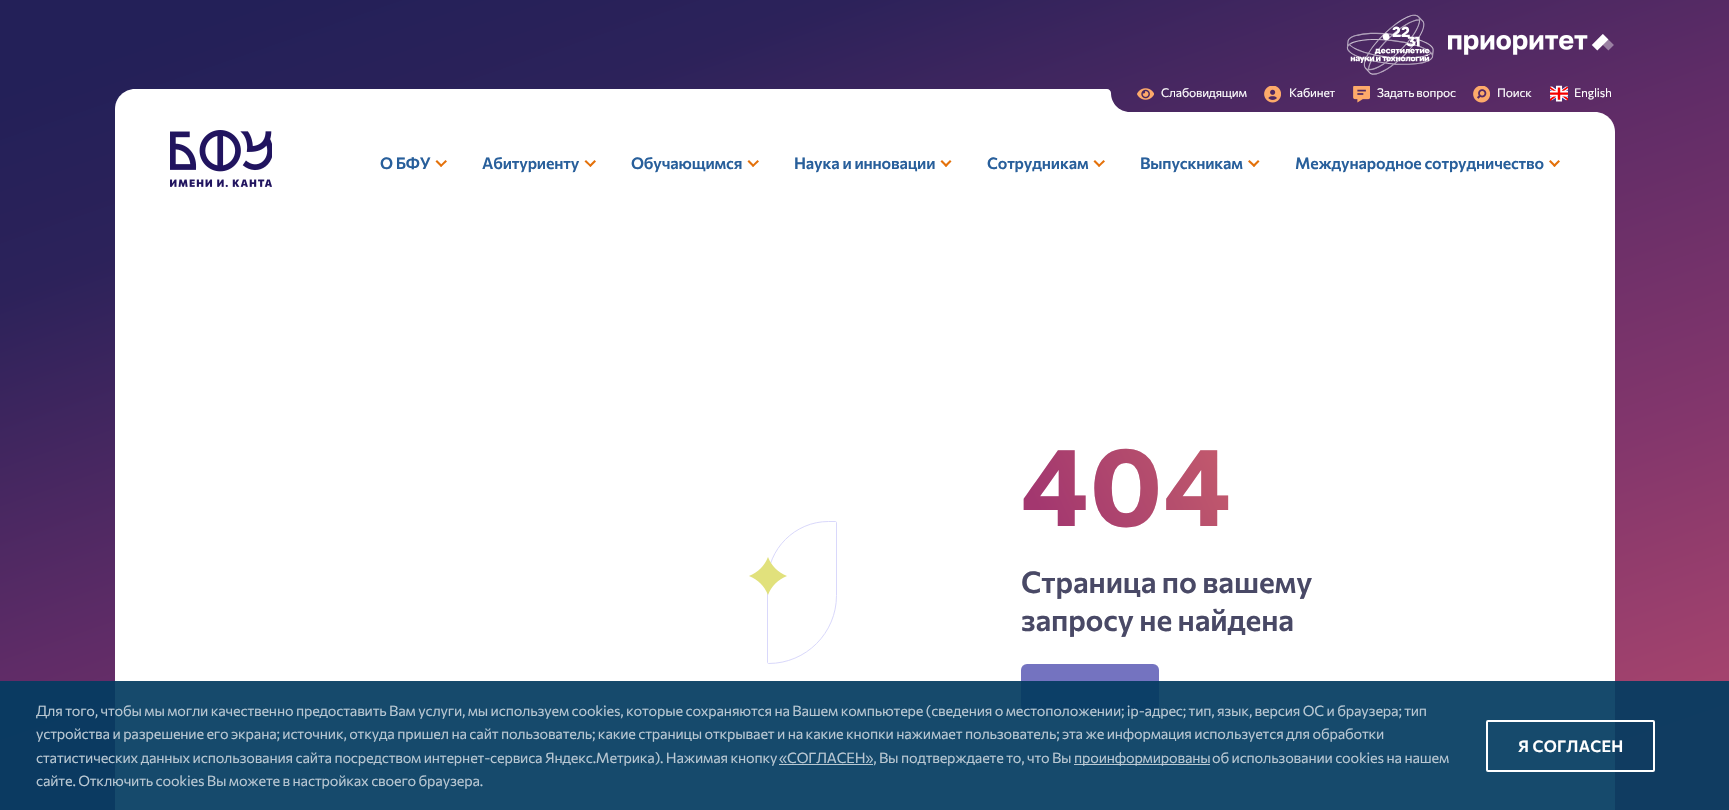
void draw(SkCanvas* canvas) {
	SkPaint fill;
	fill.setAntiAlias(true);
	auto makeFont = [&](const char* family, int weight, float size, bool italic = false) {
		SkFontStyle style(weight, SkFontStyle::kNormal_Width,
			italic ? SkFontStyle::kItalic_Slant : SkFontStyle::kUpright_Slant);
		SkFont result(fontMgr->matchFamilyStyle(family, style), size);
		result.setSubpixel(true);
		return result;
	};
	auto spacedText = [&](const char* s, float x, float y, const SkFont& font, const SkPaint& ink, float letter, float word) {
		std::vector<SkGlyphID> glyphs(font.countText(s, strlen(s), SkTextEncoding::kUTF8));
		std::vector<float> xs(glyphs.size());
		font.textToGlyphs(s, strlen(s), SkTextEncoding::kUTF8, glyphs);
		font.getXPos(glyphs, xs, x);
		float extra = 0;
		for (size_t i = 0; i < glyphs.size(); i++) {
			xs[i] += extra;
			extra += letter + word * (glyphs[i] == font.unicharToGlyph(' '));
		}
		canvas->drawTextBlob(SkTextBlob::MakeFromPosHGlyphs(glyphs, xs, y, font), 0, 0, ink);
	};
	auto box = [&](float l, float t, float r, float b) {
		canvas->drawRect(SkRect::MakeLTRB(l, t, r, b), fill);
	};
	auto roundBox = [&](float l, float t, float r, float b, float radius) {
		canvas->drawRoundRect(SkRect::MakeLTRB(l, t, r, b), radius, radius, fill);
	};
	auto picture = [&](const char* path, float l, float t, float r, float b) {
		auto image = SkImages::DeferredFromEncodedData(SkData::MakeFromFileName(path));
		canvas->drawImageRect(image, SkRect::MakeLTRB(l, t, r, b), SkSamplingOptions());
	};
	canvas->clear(0xFFFFFFFF);
	{
		const SkColor colors[] = {0xFF232058, 0xFF2C225A, 0xFF602C67, 0xFF83366C, 0xFFA6446D, 0xFFC5596C, 0xFFDE716A, 0xFFEF8A68, 0xFFF9A068, 0xFFFBAD63, 0xFFFBA045};
		const float stops[] = {0.03f, 0.1f, 0.23f, 0.34f, 0.44f, 0.53f, 0.61f, 0.67f, 0.77f, 0.84f, 1};
		const SkPoint ends[] = {{508, -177}, {1426, 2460}};
		fill.setShader(SkGradientShader::MakeLinear(ends, colors, stops, 11, SkTileMode::kClamp));
		fill.setAlpha(255);
	}
	box(0, 0, 1729, 810);
	picture("image0.png", 1346, 14, 1434, 75);
	picture("image1.png", 1448, 34, 1614, 55);
	fill.setShader(nullptr);
	fill.setColor(0xFFFFFFFF);
	canvas->drawPath(SkPathBuilder().moveTo(135, 89).lineTo(856, 89).lineTo(856, 112).lineTo(115, 112).lineTo(115, 109).cubicTo(115, 98, 124, 89, 135, 89).close().detach(), fill);
	box(856, 89, 1104, 112);
	canvas->save();
	canvas->clipRect(SkRect::MakeLTRB(1104, 89, 1132, 112));
	canvas->drawPath(SkPathBuilder(SkPathFillType::kEvenOdd).moveTo(1130, 112).lineTo(1572, 112).cubicTo(1582, 112, 1591, 121, 1591, 131).lineTo(1591, 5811).cubicTo(1591, 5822, 1582, 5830, 1572, 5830).lineTo(172, 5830).cubicTo(162, 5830, 153, 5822, 153, 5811).lineTo(153, 108).cubicTo(153, 98, 162, 89, 172, 89).lineTo(1107, 89).cubicTo(1109, 89, 1111, 91, 1111, 93).cubicTo(1111, 103, 1119, 112, 1130, 112).close().detach(), fill);
	canvas->restore();
	picture("image2.png", 1137, 88, 1154, 100);
	picture("image3.png", 1264, 86, 1281, 103);
	picture("image4.png", 1353, 86, 1370, 103);
	picture("image5.png", 1473, 86, 1490, 103);
	picture("image6.png", 1550, 85, 1568, 102);
	canvas->drawPath(SkPathBuilder().moveTo(115, 112).lineTo(1595, 112).cubicTo(1606, 112, 1615, 121, 1615, 132).lineTo(1615, 810).cubicTo(1615, 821, 1606, 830, 1595, 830).lineTo(135, 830).cubicTo(124, 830, 115, 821, 115, 810).close().detach(), fill);
	picture("image7.png", 170, 130, 272, 187);
	fill.setColor(0xFFE4710A);
	canvas->drawPath(SkPathBuilder().moveTo(447, 161.5f).lineTo(441, 167).lineTo(440, 165.5f).lineTo(445.5f, 160).close().detach(), fill);
	canvas->drawPath(SkPathBuilder().moveTo(442.5f, 165.5f).lineTo(441, 167).lineTo(435.5f, 161.5f).lineTo(437, 160).close().detach(), fill);
	canvas->drawPath(SkPathBuilder().moveTo(596, 161.5f).lineTo(590.5f, 167).lineTo(589, 165.5f).lineTo(594.5f, 160).close().detach(), fill);
	canvas->drawPath(SkPathBuilder().moveTo(591.5f, 165.5f).lineTo(590.5f, 167).lineTo(584.5f, 161.5f).lineTo(586, 160).close().detach(), fill);
	canvas->drawPath(SkPathBuilder().moveTo(759, 161.5f).lineTo(753, 167).lineTo(752, 165.5f).lineTo(757.5f, 160).close().detach(), fill);
	canvas->drawPath(SkPathBuilder().moveTo(754.5f, 165.5f).lineTo(753, 167).lineTo(747.5f, 161.5f).lineTo(749, 160).close().detach(), fill);
	canvas->drawPath(SkPathBuilder().moveTo(951.5f, 161.5f).lineTo(946, 167).lineTo(944.5f, 165.5f).lineTo(950, 160).close().detach(), fill);
	canvas->drawPath(SkPathBuilder().moveTo(947.5f, 165.5f).lineTo(946, 167).lineTo(940.5f, 161.5f).lineTo(942, 160).close().detach(), fill);
	canvas->drawPath(SkPathBuilder().moveTo(1105, 161.5f).lineTo(1099, 167).lineTo(1098, 165.5f).lineTo(1103.5f, 160).close().detach(), fill);
	canvas->drawPath(SkPathBuilder().moveTo(1100.5f, 165.5f).lineTo(1099, 167).lineTo(1093.5f, 161.5f).lineTo(1095, 160).close().detach(), fill);
	canvas->drawPath(SkPathBuilder().moveTo(1259.5f, 161.5f).lineTo(1254, 167).lineTo(1252.5f, 165.5f).lineTo(1258, 160).close().detach(), fill);
	canvas->drawPath(SkPathBuilder().moveTo(1255.5f, 165.5f).lineTo(1254, 167).lineTo(1248, 161.5f).lineTo(1249.5f, 160).close().detach(), fill);
	canvas->drawPath(SkPathBuilder().moveTo(1560, 161.5f).lineTo(1554.5f, 167).lineTo(1553, 165.5f).lineTo(1558.5f, 160).close().detach(), fill);
	canvas->drawPath(SkPathBuilder().moveTo(1556, 165.5f).lineTo(1554.5f, 167).lineTo(1549, 161.5f).lineTo(1550.5f, 160).close().detach(), fill);
	fill.setStyle(SkPaint::kStroke_Style);
	fill.setStrokeWidth(1);
	fill.setColor(0xFFD9D8FB);
	canvas->drawPath(SkPathBuilder().moveTo(828.5f, 521.5f).lineTo(835.5f, 521.5f).cubicTo(836, 521.5f, 836.5f, 522, 836.5f, 522.5f).lineTo(836.5f, 595.5f).cubicTo(836.5f, 633, 806, 663.5f, 768.5f, 663.5f).cubicTo(768, 663.5f, 767.5f, 663, 767.5f, 662.5f).lineTo(767.5f, 582.5f).cubicTo(767.5f, 549, 795, 521.5f, 828.5f, 521.5f).close().detach(), fill);
	fill.setStyle(SkPaint::kFill_Style);
	fill.setColor(0xFFE1E17C);
	canvas->drawPath(SkPathBuilder().moveTo(768, 557).cubicTo(771.5f, 566, 778, 572.5f, 787, 576).cubicTo(778, 579.5f, 771.5f, 586, 768, 595).cubicTo(764.5f, 586, 758, 579.5f, 749, 576).cubicTo(758, 572.5f, 764.5f, 566, 768, 557).close().detach(), fill);
	fill.setColor(0xFF7473C0);
	roundBox(1021, 664, 1159, 712, 6);
	fill.setColor(0xEB023B60);
	box(0, 681, 1729, 810);
	fill.setColor(0xFFB9C9D3);
	box(779, 764, 873, 765);
	box(1074, 764, 1210, 765);
	fill.setStyle(SkPaint::kStroke_Style);
	fill.setStrokeWidth(2);
	fill.setColor(0xFFFFFFFF);
	canvas->drawRoundRect(SkRect::MakeLTRB(1487, 721, 1654, 771), 1, 1, fill);
	auto font1 = makeFont("Commissioner", 400, 12);
	fill.setStyle(SkPaint::kFill_Style);
	spacedText("Слабовидящим", 1161, 97, font1, fill, -0.18f, 0);
	spacedText("Кабинет", 1289, 97, font1, fill, -0.18f, 0);
	spacedText("Задать вопрос", 1377, 97, font1, fill, -0.18f, 0);
	spacedText("Поиск", 1497, 97, font1, fill, -0.18f, 0);
	spacedText("English", 1574, 97, font1, fill, -0.18f, 0);
	auto font2 = makeFont("Commissioner", 600, 16);
	fill.setColor(0xFF285F9B);
	spacedText("О БФУ", 380, 169, font2, fill, -0.18f, 0);
	spacedText("Абитуриенту", 482, 169, font2, fill, -0.18f, 0);
	spacedText("Обучающимся", 631, 169, font2, fill, -0.18f, 0);
	spacedText("Наука и инновации", 794, 169, font2, fill, -0.18f, 0);
	spacedText("Сотрудникам", 987, 169, font2, fill, -0.18f, 0);
	spacedText("Выпускникам", 1140, 169, font2, fill, -0.18f, 0);
	spacedText("Международное сотрудничество", 1295, 169, font2, fill, -0.18f, 0);
	auto font3 = makeFont("Commissioner", 700, 110);
	{
		const SkColor colors[] = {0xFFA3376F, 0xFFB64F6D, 0xFFD2666C, 0xFFD6696B, 0xFFF59769};
		const float stops[] = {0.05f, 0.27f, 0.5f, 0.75f, 0.94f};
		const SkPoint ends[] = {{1051, 606}, {1584, 358}};
		fill.setShader(SkGradientShader::MakeLinear(ends, colors, stops, 5, SkTileMode::kClamp));
		fill.setAlpha(255);
	}
	spacedText("404", 1021, 526, font3, fill, 1, 0);
	auto font4 = makeFont("Commissioner", 600, 30);
	fill.setShader(nullptr);
	fill.setColor(0xFF494966);
	spacedText("Страница по вашему", 1021, 593, font4, fill, -0.18f, 0);
	spacedText("запросу не найдена", 1021, 631, font4, fill, -0.18f, 0);
	auto font5 = makeFont("Commissioner", 400, 14.4f);
	fill.setColor(0xFFB9C8D3);
	spacedText("Для того, чтобы мы могли качественно предоставить Вам услуги, мы используем cookies, которые сохраняются на Вашем компьютере (сведения о местоположении; ip-адрес; тип, язык, версия ОС и браузера; тип", 36, 716, font5, fill, -0.18f, 0);
	spacedText("устройства и разрешение его экрана; источник, откуда пришел на сайт пользователь; какие страницы открывает и на какие кнопки нажимает пользователь; эта же информация используется для обработки", 36, 739, font5, fill, -0.18f, 0);
	spacedText("статистических данных использования сайта посредством интернет-сервиса Яндекс.Метрика). Нажимая кнопку", 36, 763, font5, fill, -0.18f, 0);
	spacedText("«СОГЛАСЕН», Вы подтверждаете то, что Вы", 779, 763, font5, fill, -0.18f, 0);
	spacedText("проинформированы", 1074, 763, font5, fill, -0.18f, 0);
	spacedText("об использовании cookies на нашем", 1212, 763, font5, fill, -0.18f, 0);
	spacedText("сайте. Отключить cookies Вы можете в настройках своего браузера.", 36, 786, font5, fill, -0.18f, 0);
	fill.setColor(0xFFFFFFFF);
	spacedText("Я СОГЛАСЕН", 1518, 752, font2, fill, 0.25f, 0);
}
